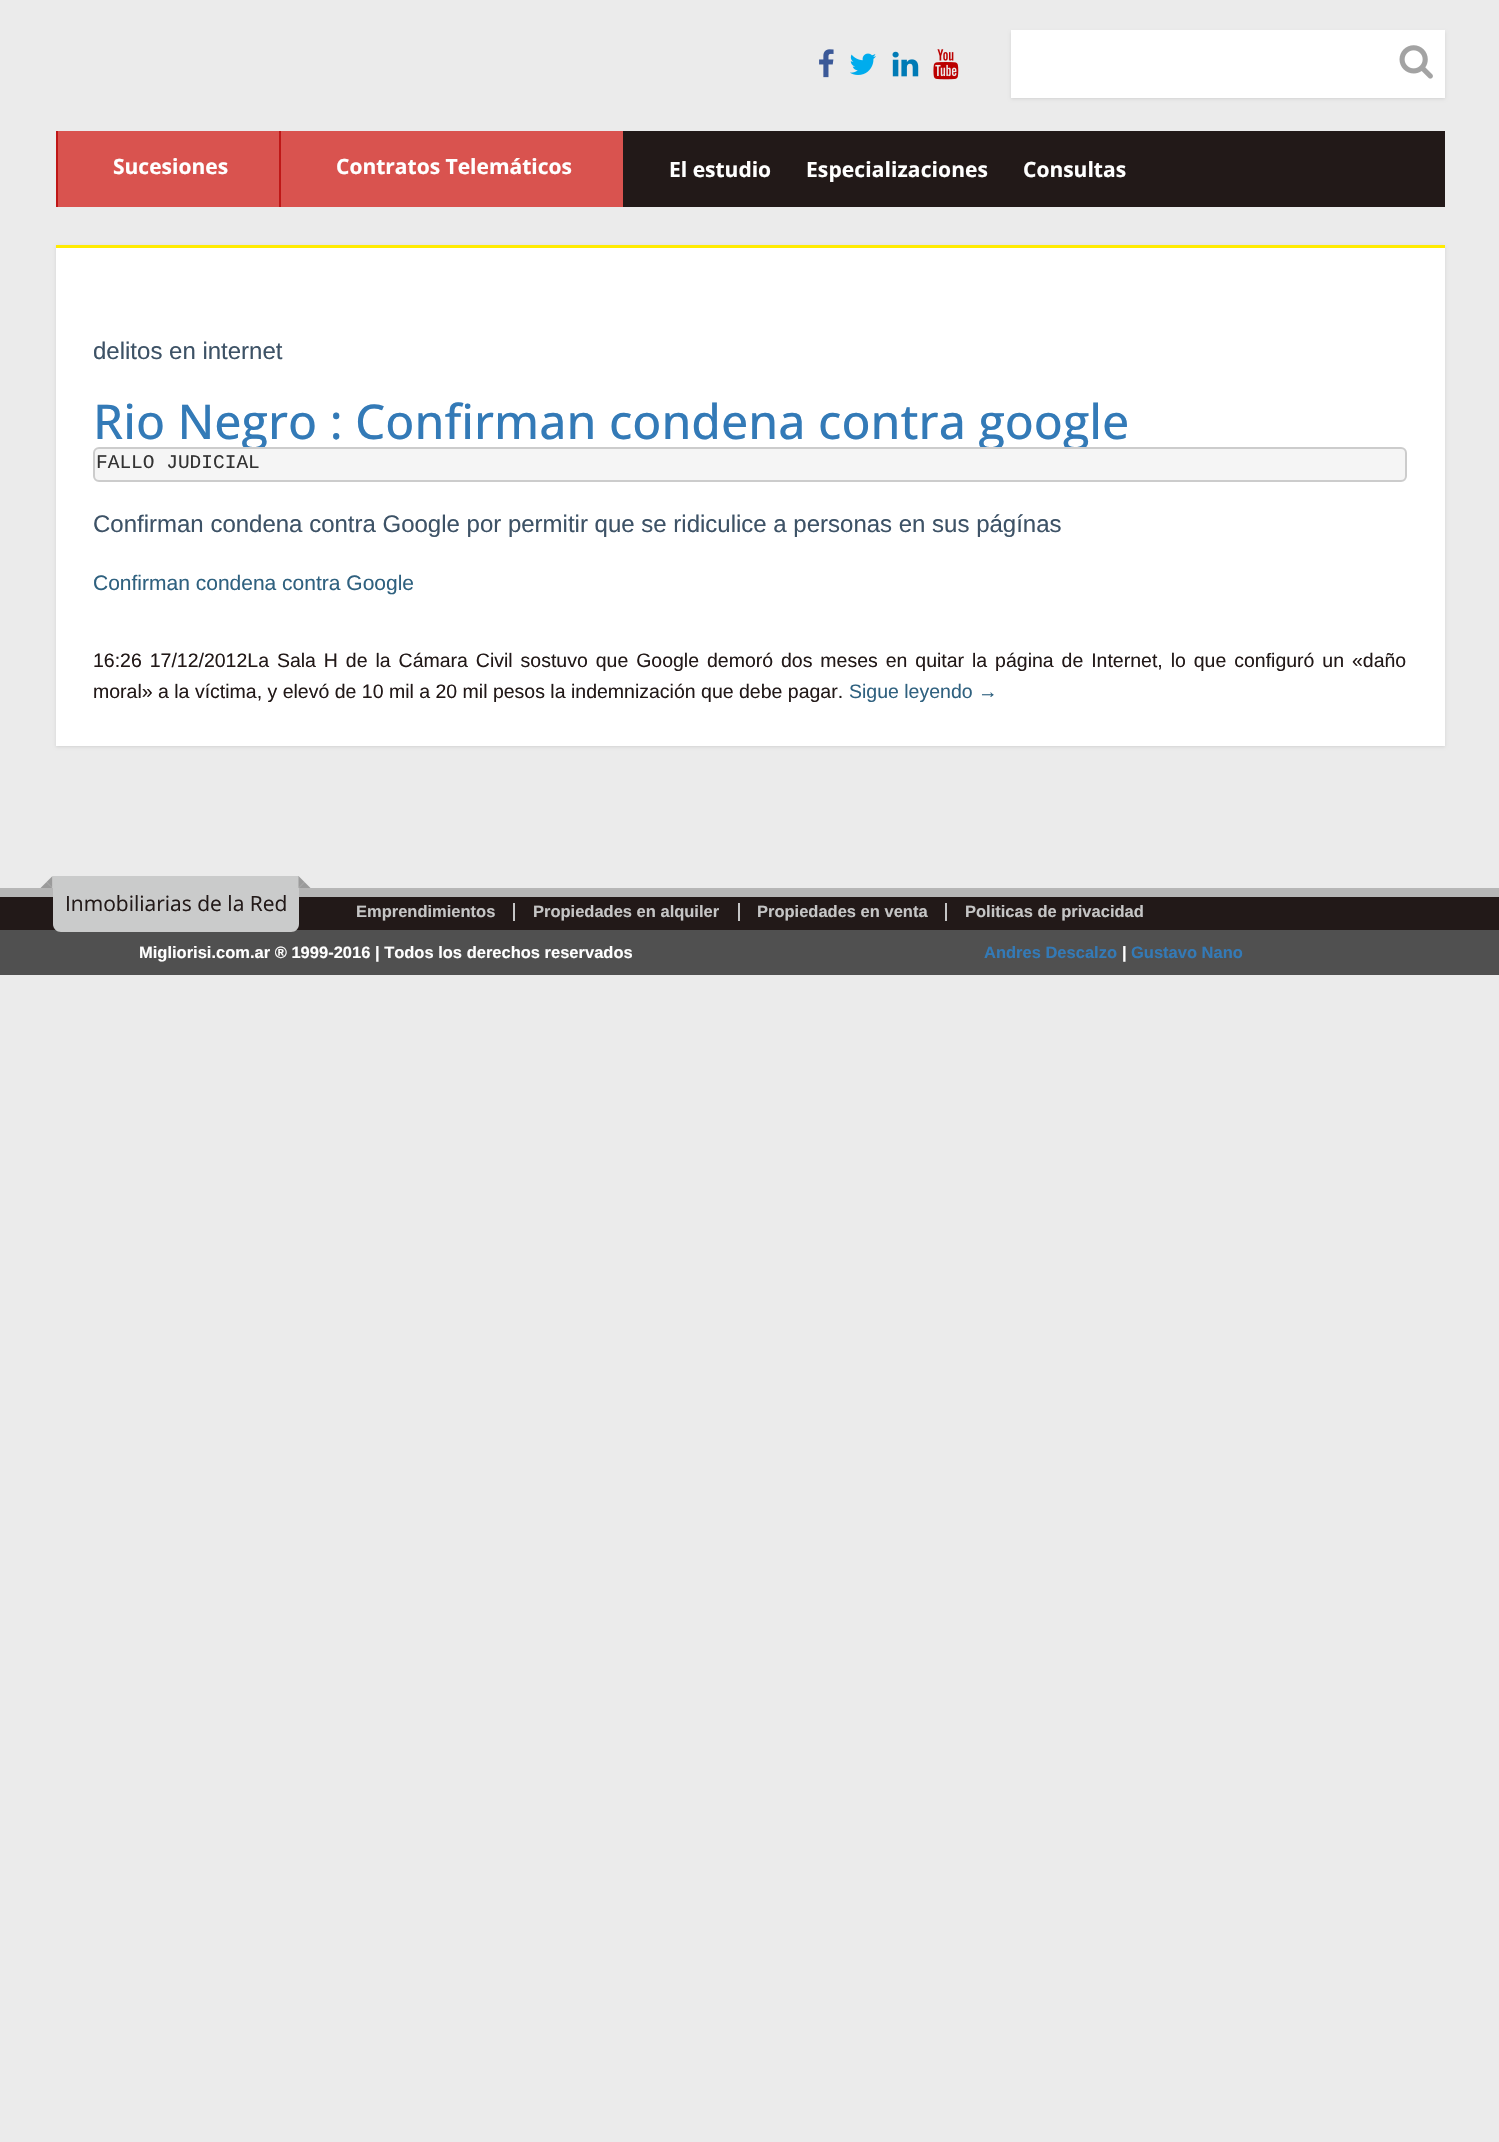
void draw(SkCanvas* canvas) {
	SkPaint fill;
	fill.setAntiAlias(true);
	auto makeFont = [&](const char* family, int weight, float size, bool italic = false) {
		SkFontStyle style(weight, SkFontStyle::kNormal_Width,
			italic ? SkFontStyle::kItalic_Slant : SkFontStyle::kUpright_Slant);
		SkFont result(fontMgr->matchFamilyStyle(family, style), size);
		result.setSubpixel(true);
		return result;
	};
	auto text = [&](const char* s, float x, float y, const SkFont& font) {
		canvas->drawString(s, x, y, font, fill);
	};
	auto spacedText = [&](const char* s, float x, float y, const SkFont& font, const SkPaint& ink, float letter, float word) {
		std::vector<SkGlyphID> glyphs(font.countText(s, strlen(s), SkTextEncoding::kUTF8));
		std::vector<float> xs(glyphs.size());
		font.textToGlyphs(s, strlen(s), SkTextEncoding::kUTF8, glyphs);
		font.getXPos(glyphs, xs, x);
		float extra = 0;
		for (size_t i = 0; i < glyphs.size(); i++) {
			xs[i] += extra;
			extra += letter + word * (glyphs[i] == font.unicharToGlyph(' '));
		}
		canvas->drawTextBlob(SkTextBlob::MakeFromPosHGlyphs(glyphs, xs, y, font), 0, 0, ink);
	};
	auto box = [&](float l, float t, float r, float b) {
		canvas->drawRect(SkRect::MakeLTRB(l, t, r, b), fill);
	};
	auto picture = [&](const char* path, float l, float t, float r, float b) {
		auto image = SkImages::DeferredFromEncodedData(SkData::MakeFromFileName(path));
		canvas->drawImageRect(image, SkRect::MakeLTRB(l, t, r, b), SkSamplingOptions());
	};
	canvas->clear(0xFFEBEBEB);
	picture("image0.png", 819, 49, 834, 78);
	picture("image1.png", 850, 53, 876, 75);
	picture("image2.png", 892, 51, 919, 77);
	picture("image3.png", 933, 49, 959, 80);
	fill.setColor(0x1A000000);
	fill.setMaskFilter(SkMaskFilter::MakeBlur(kNormal_SkBlurStyle, 1.5f));
	canvas->drawRect(SkRect::MakeLTRB(1011, 32, 1445, 99), fill);
	fill.setMaskFilter(nullptr);
	fill.setColor(0xFFFFFFFF);
	box(1011, 30, 1445, 98);
	picture("image4.png", 1399, 45, 1433, 79);
	fill.setColor(0xFF221918);
	box(623, 131, 1445, 207);
	fill.setColor(0xFFD9534F);
	box(58, 131, 623, 207);
	fill.setColor(0xFFBF1717);
	box(56, 131, 58, 207);
	box(279, 131, 281, 207);
	fill.setColor(0x1A000000);
	fill.setMaskFilter(SkMaskFilter::MakeBlur(kNormal_SkBlurStyle, 1.5f));
	canvas->drawRect(SkRect::MakeLTRB(56, 246, 1445, 747), fill);
	fill.setMaskFilter(nullptr);
	fill.setColor(0xFFFFFFFF);
	box(56, 248, 1445, 746);
	fill.setColor(0xFFFFEB00);
	box(56, 245, 1445, 248);
	fill.setColor(0xFFB6B6B6);
	box(0, 888, 1499, 897);
	fill.setColor(0xFF221918);
	box(0, 897, 1499, 930);
	fill.setColor(0xFF505050);
	box(0, 930, 1499, 975);
	fill.setColor(0xFFCACBCB);
	canvas->drawPath(SkPathBuilder().moveTo(53, 876).lineTo(299, 876).lineTo(299, 924).cubicTo(299, 928.5f, 295.5f, 932, 291, 932).lineTo(61, 932).cubicTo(56.5f, 932, 53, 928.5f, 53, 924).close().detach(), fill);
	fill.setColor(0xFF9B9B9B);
	canvas->drawPath(SkPathBuilder().moveTo(52.5f, 876).lineTo(52.5f, 888).lineTo(46.5f, 882).close().detach(), fill);
	canvas->drawPath(SkPathBuilder().moveTo(52.5f, 888).lineTo(40.5f, 888).lineTo(46.5f, 882).close().detach(), fill);
	canvas->drawPath(SkPathBuilder().moveTo(310.5f, 888).lineTo(298.5f, 888).lineTo(304.5f, 882).close().detach(), fill);
	canvas->drawPath(SkPathBuilder().moveTo(298.5f, 888).lineTo(298.5f, 876).lineTo(304.5f, 882).close().detach(), fill);
	fill.setColor(0xFFC5C5C5);
	box(513, 903, 515, 921);
	box(738, 903, 740, 921);
	box(945, 903, 947, 921);
	auto font1 = makeFont("Open Sans", 700, 21);
	fill.setColor(0xFFFFFFFF);
	text("Sucesiones", 113, 174, font1);
	text("Contratos Telemáticos", 336, 174, font1);
	text("El estudio", 669, 177, font1);
	spacedText("Especializaciones", 806, 177, font1, fill, 0.1f, 0);
	text("Consultas", 1023, 177, font1);
	auto font2 = makeFont("Liberation Sans", 400, 24);
	fill.setColor(0xFF3D5266);
	text("delitos en internet", 93, 359, font2);
	auto font3 = makeFont("Open Sans", 500, 48);
	fill.setColor(0xFF337AB7);
	text("Rio Negro : Confirman condena contra google", 93, 439, font3);
	fill.setColor(0xFFF5F5F5);
	canvas->drawRoundRect(SkRect::MakeLTRB(94, 448, 1406, 481), 5, 5, fill);
	fill.setStyle(SkPaint::kStroke_Style);
	fill.setStrokeWidth(2);
	fill.setColor(0xFFCCCCCC);
	canvas->drawRoundRect(SkRect::MakeLTRB(94, 448, 1406, 481), 5, 5, fill);
	auto font4 = makeFont("Liberation Mono", 400, 19.5f);
	fill.setStyle(SkPaint::kFill_Style);
	fill.setColor(0xFF333333);
	text("FALLO JUDICIAL", 96, 468, font4);
	fill.setColor(0xFF3D5266);
	text("Confirman condena contra Google por permitir que se ridiculice a personas en sus págínas", 93, 532, font2);
	auto font5 = makeFont("Liberation Sans", 400, 21);
	fill.setColor(0xFF2F617F);
	text("Confirman condena contra Google", 93, 590, font5);
	auto font6 = makeFont("Liberation Sans", 400, 19.5f);
	fill.setColor(0xFF221918);
	spacedText("16:26 17/12/2012La Sala H de la Cámara Civil sostuvo que Google demoró dos meses en quitar la página de Internet, lo que configuró un «daño", 93, 667, font6, fill, 0, 2.5f);
	text("moral» a la víctima, y elevó de 10 mil a 20 mil pesos la indemnización que debe pagar.", 93, 698, font6);
	fill.setColor(0xFF2F617F);
	text("Sigue leyendo →", 849, 698, font6);
	auto font7 = makeFont("Open Sans", 400, 21);
	fill.setColor(0xFF221918);
	text("Inmobiliarias de la Red", 65, 911, font7);
	auto font8 = makeFont("Liberation Sans", 700, 16.5f);
	fill.setColor(0xFFC5C5C5);
	text("Emprendimientos", 356, 917, font8);
	text("Propiedades en alquiler", 533, 917, font8);
	text("Propiedades en venta", 757, 917, font8);
	text("Politicas de privacidad", 965, 917, font8);
	fill.setColor(0xFFFFFFFF);
	text("Migliorisi.com.ar ® 1999-2016 | Todos los derechos reservados", 139, 958, font8);
	fill.setColor(0xFF337AB7);
	text("Andres Descalzo", 984, 958, font8);
	fill.setColor(0xFFFFFFFF);
	text("|", 1122, 958, font8);
	fill.setColor(0xFF337AB7);
	text("Gustavo Nano", 1131, 958, font8);
}
